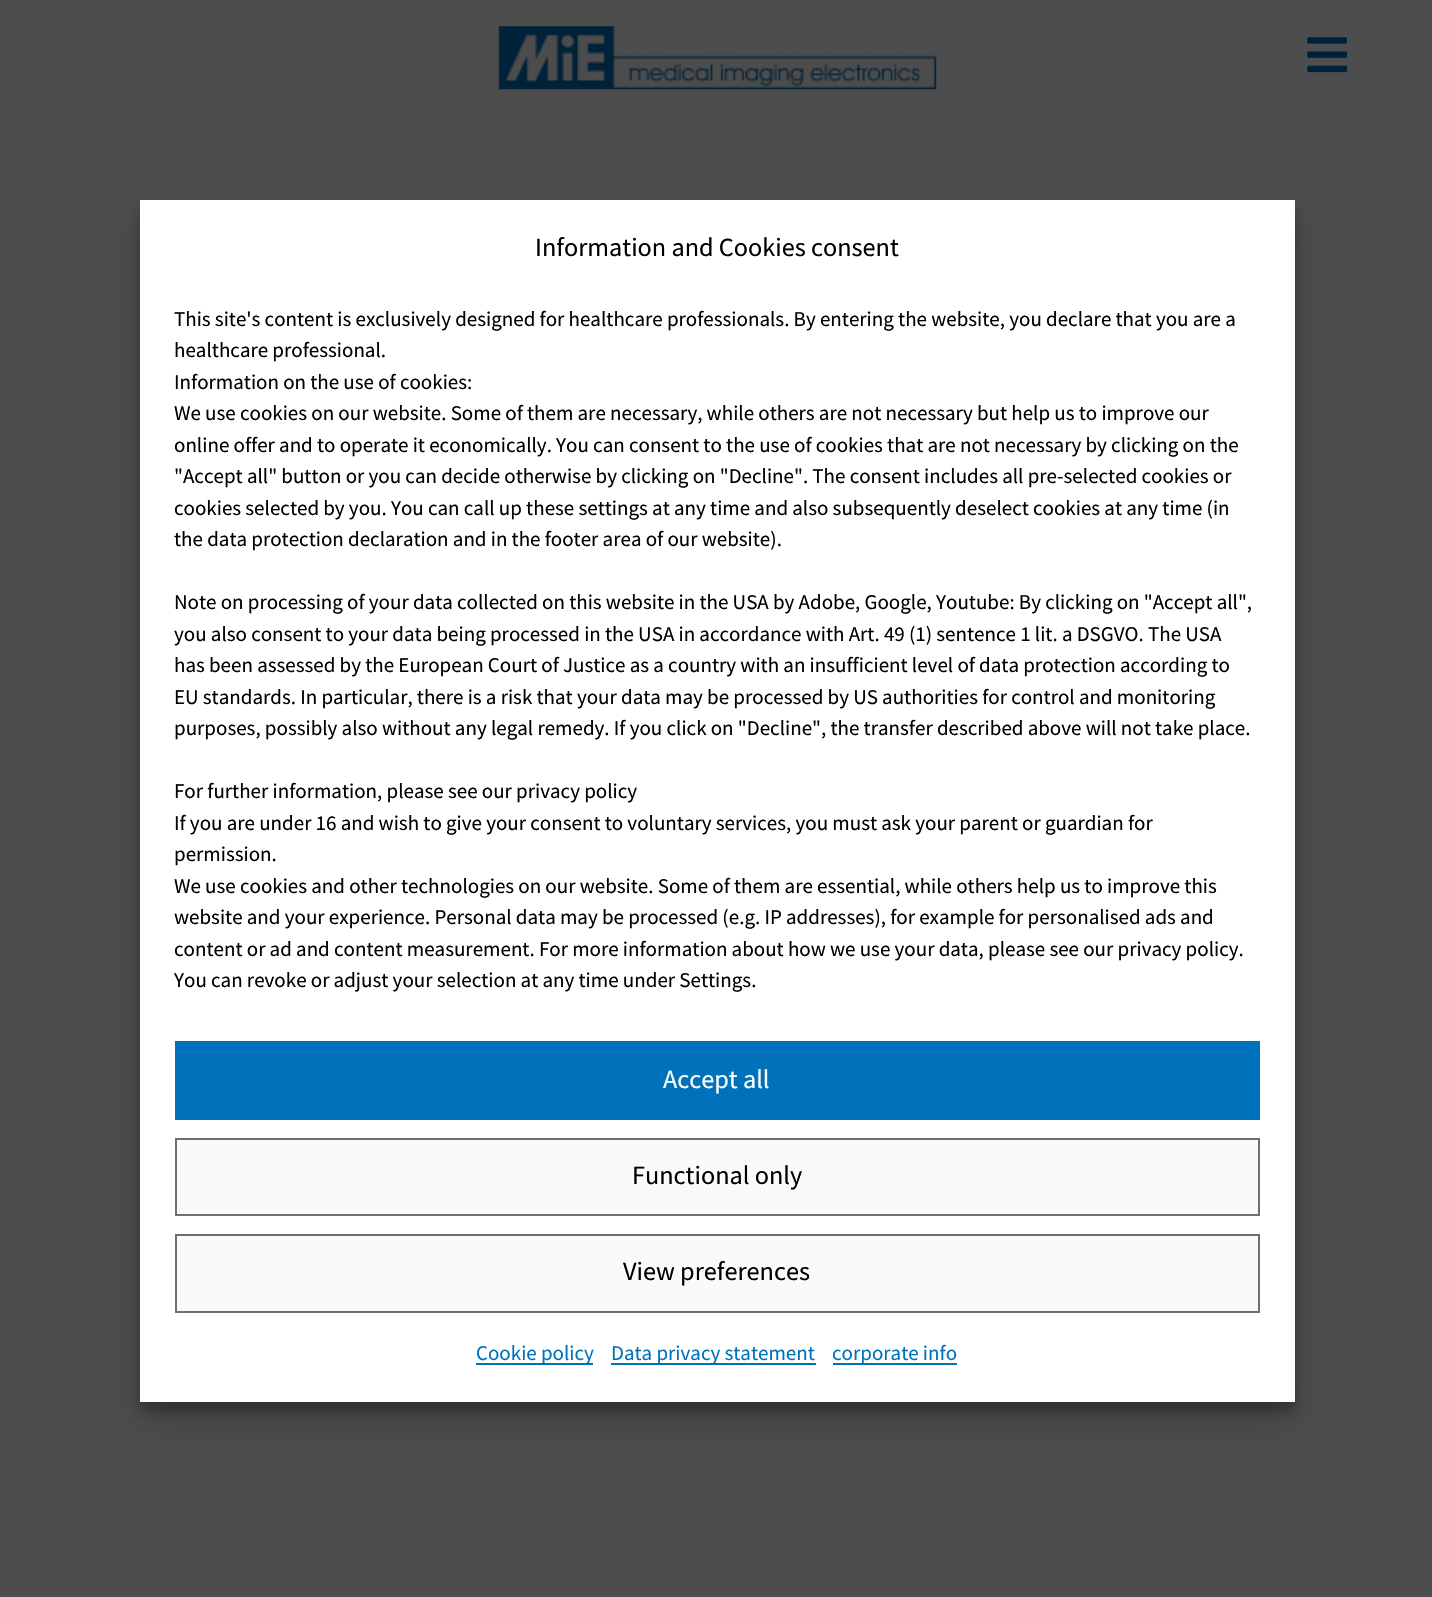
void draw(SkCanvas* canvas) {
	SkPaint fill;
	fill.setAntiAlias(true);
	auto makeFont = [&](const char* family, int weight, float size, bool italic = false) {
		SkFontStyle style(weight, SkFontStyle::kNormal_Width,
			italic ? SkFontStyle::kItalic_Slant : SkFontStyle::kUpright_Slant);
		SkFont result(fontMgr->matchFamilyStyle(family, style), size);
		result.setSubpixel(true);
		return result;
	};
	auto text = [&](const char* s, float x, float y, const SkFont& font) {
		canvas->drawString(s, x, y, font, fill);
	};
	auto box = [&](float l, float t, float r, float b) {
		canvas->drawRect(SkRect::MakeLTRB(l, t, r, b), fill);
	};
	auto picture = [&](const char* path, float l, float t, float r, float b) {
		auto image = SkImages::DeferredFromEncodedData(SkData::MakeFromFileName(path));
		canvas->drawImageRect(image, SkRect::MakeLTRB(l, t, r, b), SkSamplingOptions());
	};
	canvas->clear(0xFF4D4D4D);
	picture("image0.png", 498, 26, 937, 90);
	picture("image1.png", 1307, 37, 1348, 73);
	fill.setColor(0x3B000000);
	fill.setMaskFilter(SkMaskFilter::MakeBlur(kNormal_SkBlurStyle, 5));
	canvas->drawRect(SkRect::MakeLTRB(140, 210, 1295, 1412), fill);
	fill.setMaskFilter(nullptr);
	fill.setColor(0x30000000);
	fill.setMaskFilter(SkMaskFilter::MakeBlur(kNormal_SkBlurStyle, 17.5f));
	canvas->drawRect(SkRect::MakeLTRB(140, 217, 1295, 1419), fill);
	fill.setMaskFilter(nullptr);
	fill.setColor(0xFFFFFFFF);
	box(140, 200, 1295, 1402);
	fill.setColor(0xFF0072BB);
	box(175, 1041, 1260, 1120);
	fill.setColor(0xFFFAFAFA);
	canvas->drawRect(SkRect::MakeLTRB(176, 1139, 1259, 1215), fill);
	fill.setStyle(SkPaint::kStroke_Style);
	fill.setStrokeWidth(2);
	fill.setColor(0xFF6F6F6F);
	canvas->drawRect(SkRect::MakeLTRB(176, 1139, 1259, 1215), fill);
	fill.setStyle(SkPaint::kFill_Style);
	fill.setColor(0xFFFAFAFA);
	canvas->drawRect(SkRect::MakeLTRB(176, 1235, 1259, 1312), fill);
	fill.setStyle(SkPaint::kStroke_Style);
	fill.setColor(0xFF6F6F6F);
	canvas->drawRect(SkRect::MakeLTRB(176, 1235, 1259, 1312), fill);
	fill.setStyle(SkPaint::kFill_Style);
	fill.setColor(0xFF0072BB);
	box(476, 1363, 593, 1365);
	box(611, 1363, 816, 1365);
	box(833, 1363, 957, 1365);
	auto font1 = makeFont("Source Sans Pro", 400, 26.25f);
	fill.setColor(0xFF000000);
	text("Information and Cookies consent", 535, 256, font1);
	auto font2 = makeFont("Source Sans Pro", 400, 21);
	text("This site's content is exclusively designed for healthcare professionals. By entering the website, you declare that you are a", 174, 326, font2);
	text("healthcare professional.", 174, 357, font2);
	text("Information on the use of cookies:", 174, 389, font2);
	text("We use cookies on our website. Some of them are necessary, while others are not necessary but help us to improve our", 174, 420, font2);
	text("online offer and to operate it economically. You can consent to the use of cookies that are not necessary by clicking on the", 174, 452, font2);
	text("\"Accept all\" button or you can decide otherwise by clicking on \"Decline\". The consent includes all pre-selected cookies or", 174, 483, font2);
	text("cookies selected by you. You can call up these settings at any time and also subsequently deselect cookies at any time (in", 174, 515, font2);
	text("the data protection declaration and in the footer area of our website).", 174, 546, font2);
	text("Note on processing of your data collected on this website in the USA by Adobe, Google, Youtube: By clicking on \"Accept all\",", 174, 609, font2);
	text("you also consent to your data being processed in the USA in accordance with Art. 49 (1) sentence 1 lit. a DSGVO. The USA", 174, 641, font2);
	text("has been assessed by the European Court of Justice as a country with an insufficient level of data protection according to", 174, 672, font2);
	text("EU standards. In particular, there is a risk that your data may be processed by US authorities for control and monitoring", 174, 704, font2);
	text("purposes, possibly also without any legal remedy. If you click on \"Decline\", the transfer described above will not take place.", 174, 735, font2);
	text("For further information, please see our privacy policy", 174, 798, font2);
	text("If you are under 16 and wish to give your consent to voluntary services, you must ask your parent or guardian for", 174, 830, font2);
	text("permission.", 174, 861, font2);
	text("We use cookies and other technologies on our website. Some of them are essential, while others help us to improve this", 174, 893, font2);
	text("website and your experience. Personal data may be processed (e.g. IP addresses), for example for personalised ads and", 174, 924, font2);
	text("content or ad and content measurement. For more information about how we use your data, please see our privacy policy.", 174, 956, font2);
	text("You can revoke or adjust your selection at any time under Settings.", 174, 987, font2);
	fill.setColor(0xFFFFFFFF);
	text("Accept all", 663, 1088, font1);
	fill.setColor(0xFF000000);
	text("Functional only", 632, 1184, font1);
	text("View preferences", 623, 1280, font1);
	fill.setColor(0xFF0072BB);
	text("Cookie policy", 476, 1360, font2);
	text("Data privacy statement", 611, 1360, font2);
	text("corporate info", 832, 1360, font2);
}
